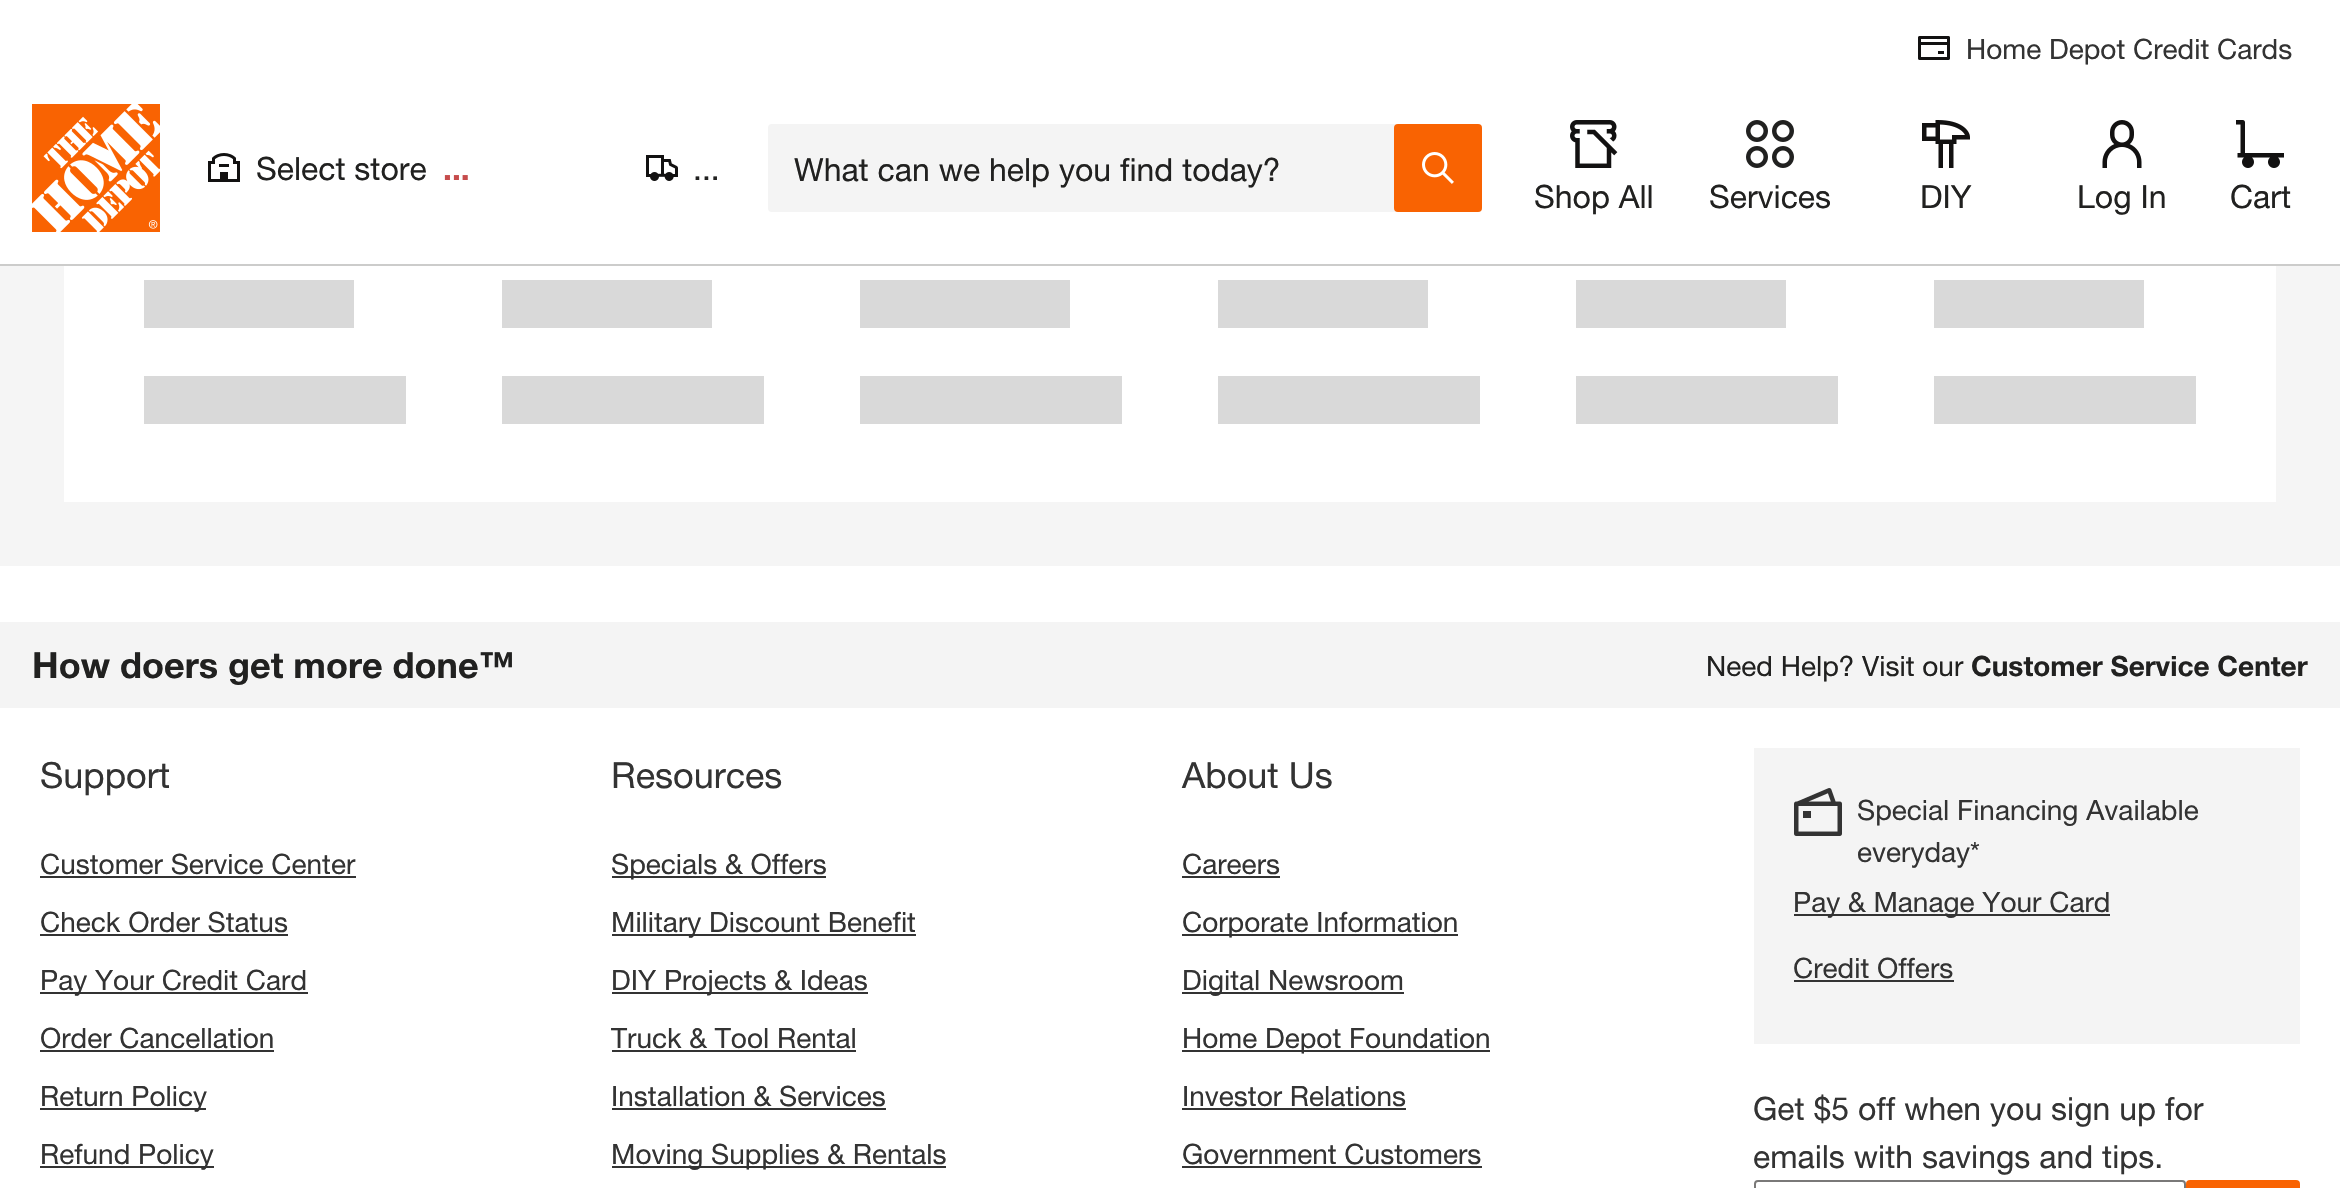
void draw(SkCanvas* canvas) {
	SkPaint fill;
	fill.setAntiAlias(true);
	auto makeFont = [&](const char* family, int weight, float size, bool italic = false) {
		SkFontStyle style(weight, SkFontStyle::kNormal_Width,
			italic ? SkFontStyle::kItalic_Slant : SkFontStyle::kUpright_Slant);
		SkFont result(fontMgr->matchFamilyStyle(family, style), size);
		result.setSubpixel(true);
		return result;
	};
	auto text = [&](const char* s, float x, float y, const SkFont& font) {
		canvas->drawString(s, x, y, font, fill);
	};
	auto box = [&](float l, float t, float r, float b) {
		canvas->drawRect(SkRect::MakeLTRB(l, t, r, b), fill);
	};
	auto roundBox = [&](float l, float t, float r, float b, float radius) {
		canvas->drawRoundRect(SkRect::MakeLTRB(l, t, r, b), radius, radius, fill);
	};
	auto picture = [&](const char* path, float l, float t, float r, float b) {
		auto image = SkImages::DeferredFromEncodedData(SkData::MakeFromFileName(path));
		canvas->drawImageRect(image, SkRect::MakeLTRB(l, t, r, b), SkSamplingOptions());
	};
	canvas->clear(0xFFFFFFFF);
	fill.setColor(0xFFCCCCCB);
	box(0, 264, 2340, 266);
	picture("image0.png", 1918, 36, 1950, 60);
	picture("image1.png", 32, 104, 160, 232);
	picture("image2.png", 208, 153, 240, 182);
	picture("image3.png", 646, 155, 678, 181);
	fill.setColor(0xFFF4F4F4);
	roundBox(768, 124, 1482, 212, 4);
	fill.setColor(0xFFF96302);
	roundBox(1394, 124, 1482, 212, 4);
	picture("image4.png", 1422, 152, 1454, 184);
	picture("image5.png", 1570, 120, 1618, 168);
	picture("image6.png", 1746, 120, 1794, 168);
	picture("image7.png", 1922, 120, 1970, 168);
	picture("image8.png", 2102, 120, 2142, 168);
	picture("image9.png", 2236, 120, 2284, 168);
	fill.setColor(0xFFF5F5F5);
	box(0, 266, 2340, 566);
	fill.setColor(0xFFFFFFFF);
	box(64, 266, 2276, 502);
	fill.setColor(0xFFD9D9D9);
	box(144, 280, 354, 328);
	box(144, 376, 406, 424);
	box(502, 280, 712, 328);
	box(502, 376, 764, 424);
	box(860, 280, 1070, 328);
	box(860, 376, 1122, 424);
	box(1218, 280, 1428, 328);
	box(1218, 376, 1480, 424);
	box(1576, 280, 1786, 328);
	box(1576, 376, 1838, 424);
	box(1934, 280, 2144, 328);
	box(1934, 376, 2196, 424);
	fill.setColor(0xFFF4F4F4);
	box(0, 622, 2340, 708);
	fill.setColor(0xFF333333);
	box(40, 876, 356, 878);
	box(40, 934, 288, 936);
	box(40, 992, 308, 994);
	box(40, 1050, 274, 1052);
	box(40, 1108, 206, 1110);
	box(40, 1166, 214, 1168);
	box(612, 876, 826, 878);
	box(612, 934, 916, 936);
	box(612, 992, 868, 994);
	box(612, 1050, 856, 1052);
	box(612, 1108, 886, 1110);
	box(612, 1166, 946, 1168);
	box(1182, 876, 1280, 878);
	box(1182, 934, 1458, 936);
	box(1182, 992, 1404, 994);
	box(1182, 1050, 1490, 1052);
	box(1182, 1108, 1406, 1110);
	box(1182, 1166, 1482, 1168);
	fill.setColor(0xFFF4F4F4);
	box(1754, 748, 2300, 1044);
	picture("image10.png", 1794, 788, 1842, 836);
	fill.setColor(0xFF333333);
	box(1794, 914, 2110, 916);
	box(1794, 980, 1954, 982);
	fill.setStyle(SkPaint::kStroke_Style);
	fill.setStrokeWidth(2);
	fill.setColor(0xFF7A7978);
	canvas->drawRoundRect(SkRect::MakeLTRB(1755, 1181, 2185, 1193), 3, 3, fill);
	fill.setStyle(SkPaint::kFill_Style);
	fill.setColor(0xFFF96302);
	roundBox(2186, 1180, 2300, 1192, 4);
	auto font1 = makeFont("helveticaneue", 400, 28);
	fill.setColor(0xFF333333);
	text("Home Depot Credit Cards", 1966, 59, font1);
	auto font2 = makeFont("helveticaneue", 400, 32);
	fill.setColor(0xFF212120);
	text("Select store", 256, 180, font2);
	auto font3 = makeFont("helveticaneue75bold", 700, 32);
	fill.setColor(0xFFC64C4C);
	text("...", 443, 180, font3);
	fill.setColor(0xFF212120);
	text("...", 693, 180, font2);
	text("What can we help you find today?", 794, 181, font2);
	text("Shop All", 1534, 208, font2);
	text("Services", 1709, 208, font2);
	text("DIY", 1920, 208, font2);
	text("Log In", 2077, 208, font2);
	text("Cart", 2230, 208, font2);
	auto font4 = makeFont("helveticaneue75bold", 700, 36);
	text("How doers get more done™", 32, 678, font4);
	text("Need Help? Visit our", 1706, 676, font1);
	auto font5 = makeFont("helveticaneue75bold", 700, 28);
	text("Customer Service Center", 1971, 676, font5);
	auto font6 = makeFont("helveticaneue", 400, 36);
	fill.setColor(0xFF333333);
	text("Support", 40, 788, font6);
	text("Customer Service Center", 40, 874, font1);
	text("Check Order Status", 40, 932, font1);
	text("Pay Your Credit Card", 40, 990, font1);
	text("Order Cancellation", 40, 1048, font1);
	text("Return Policy", 40, 1106, font1);
	text("Refund Policy", 40, 1164, font1);
	text("Resources", 611, 788, font6);
	text("Specials & Offers", 611, 874, font1);
	text("Military Discount Benefit", 611, 932, font1);
	text("DIY Projects & Ideas", 611, 990, font1);
	text("Truck & Tool Rental", 611, 1048, font1);
	text("Installation & Services", 611, 1106, font1);
	text("Moving Supplies & Rentals", 611, 1164, font1);
	text("About Us", 1182, 788, font6);
	text("Careers", 1182, 874, font1);
	text("Corporate Information", 1182, 932, font1);
	text("Digital Newsroom", 1182, 990, font1);
	text("Home Depot Foundation", 1182, 1048, font1);
	text("Investor Relations", 1182, 1106, font1);
	text("Government Customers", 1182, 1164, font1);
	text("Special Financing Available", 1857, 820, font1);
	text("everyday*", 1857, 862, font1);
	text("Pay & Manage Your Card", 1793, 912, font1);
	text("Credit Offers", 1793, 978, font1);
	text("Get $5 off when you sign up for", 1753, 1120, font2);
	text("emails with savings and tips.", 1753, 1168, font2);
}
